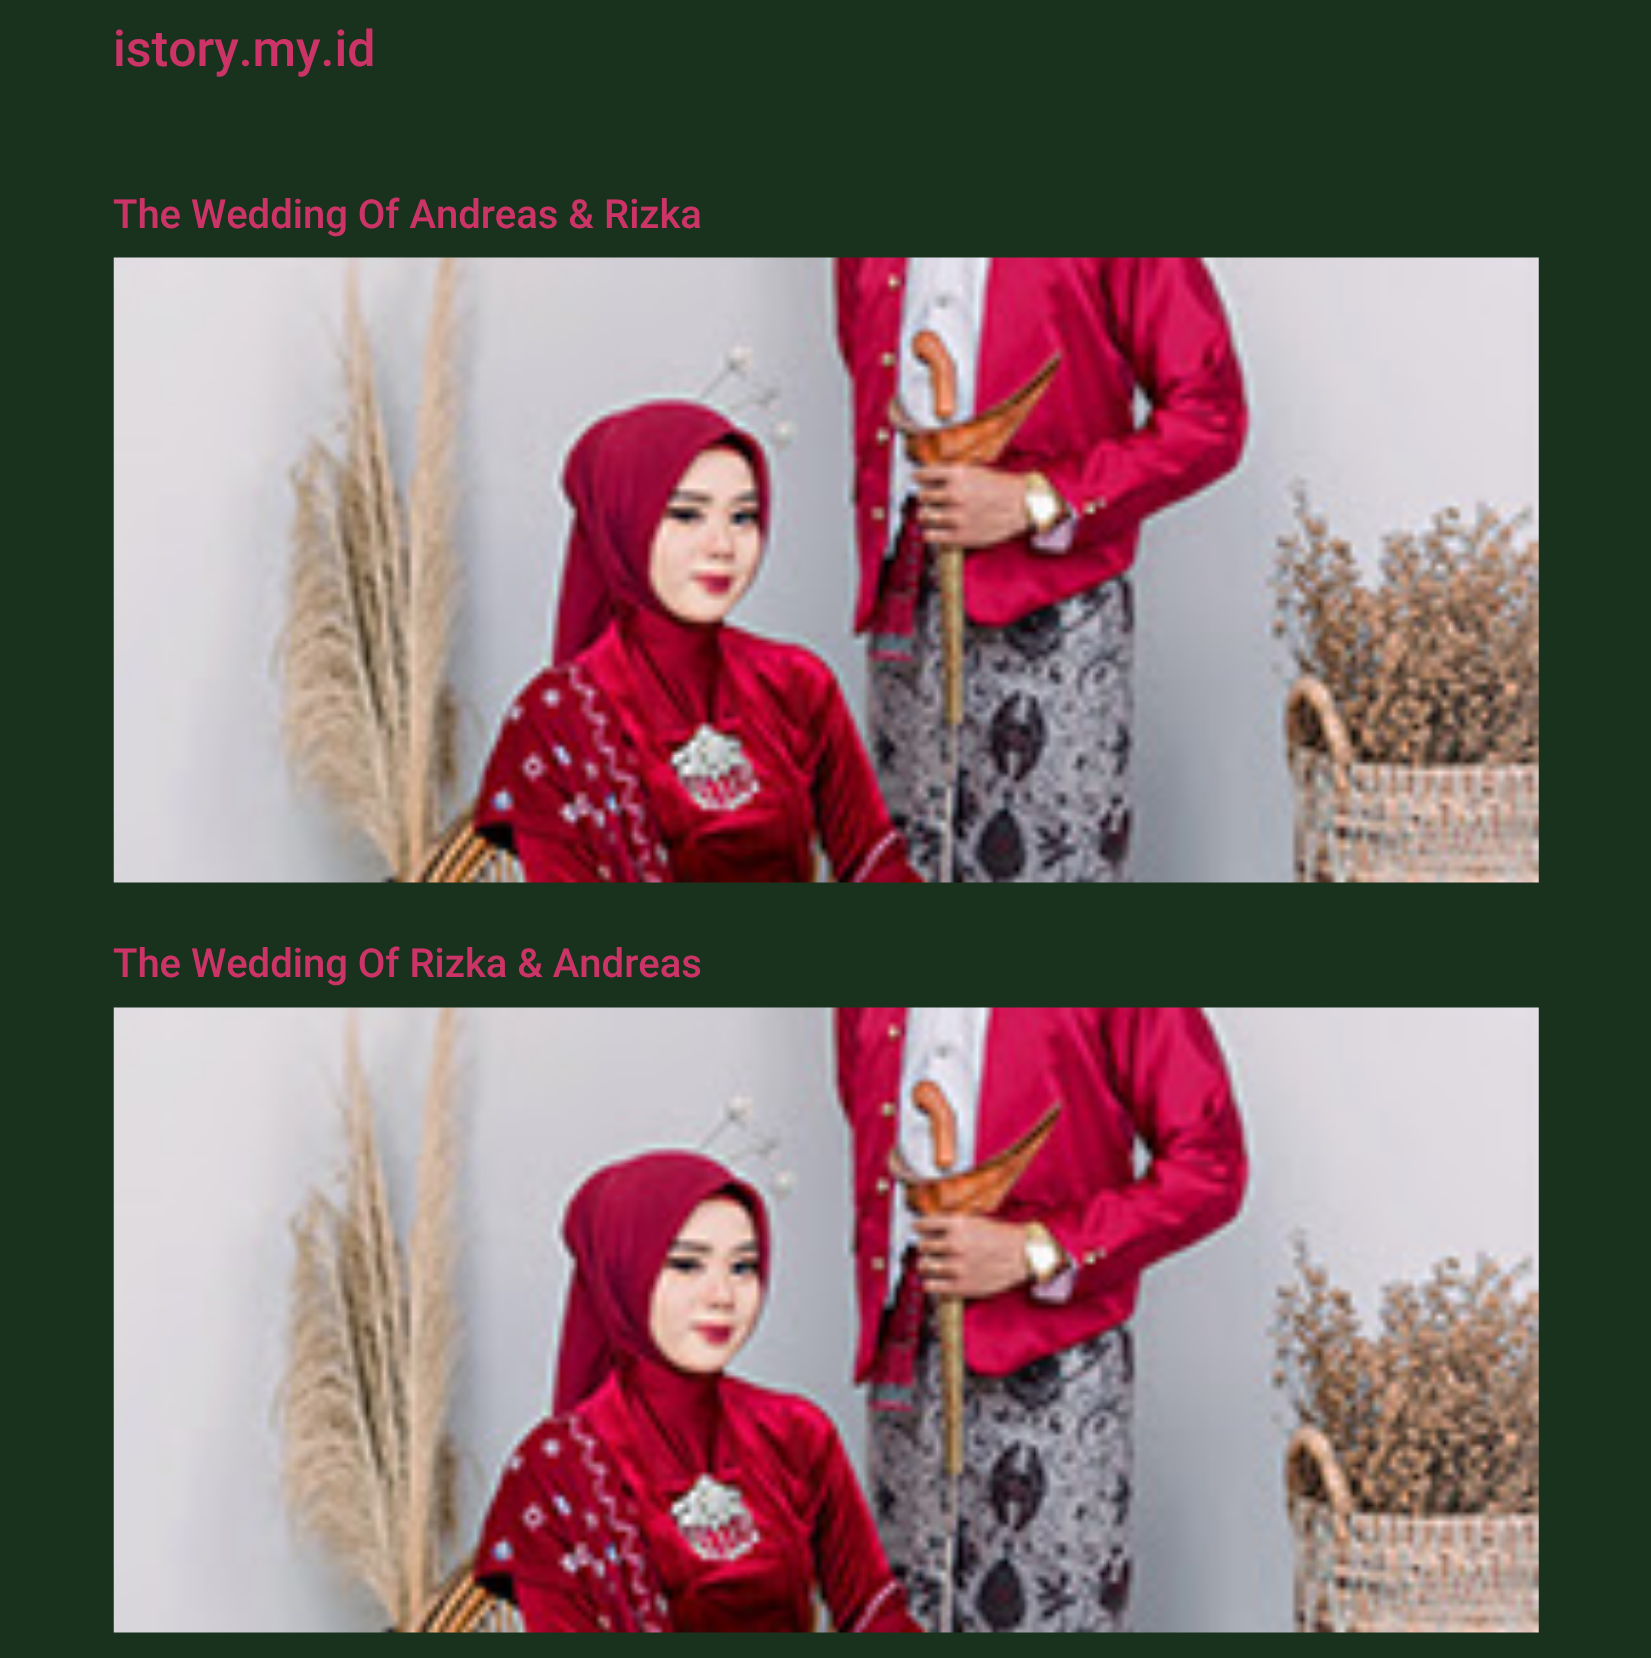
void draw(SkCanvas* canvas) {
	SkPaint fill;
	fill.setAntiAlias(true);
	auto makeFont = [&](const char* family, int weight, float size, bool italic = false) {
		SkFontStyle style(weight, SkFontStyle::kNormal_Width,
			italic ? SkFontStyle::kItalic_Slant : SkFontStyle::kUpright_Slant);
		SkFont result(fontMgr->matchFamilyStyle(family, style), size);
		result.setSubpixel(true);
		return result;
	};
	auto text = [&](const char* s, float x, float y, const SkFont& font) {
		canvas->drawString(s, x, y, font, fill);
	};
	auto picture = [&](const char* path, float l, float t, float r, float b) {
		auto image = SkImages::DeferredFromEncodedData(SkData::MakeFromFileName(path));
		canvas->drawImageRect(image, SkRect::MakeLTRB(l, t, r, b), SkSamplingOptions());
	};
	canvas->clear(0xFF19321D);
	picture("image0.png", 113, 257, 1539, 883);
	picture("image0.png", 113, 1007, 1539, 1633);
	auto font1 = makeFont("Roboto", 500, 50);
	fill.setColor(0xFFCC3366);
	text("istory.my.id", 113, 66, font1);
	auto font2 = makeFont("Roboto", 500, 40);
	text("The Wedding Of Andreas & Rizka", 113, 228, font2);
	text("The Wedding Of Rizka & Andreas", 113, 977, font2);
}
